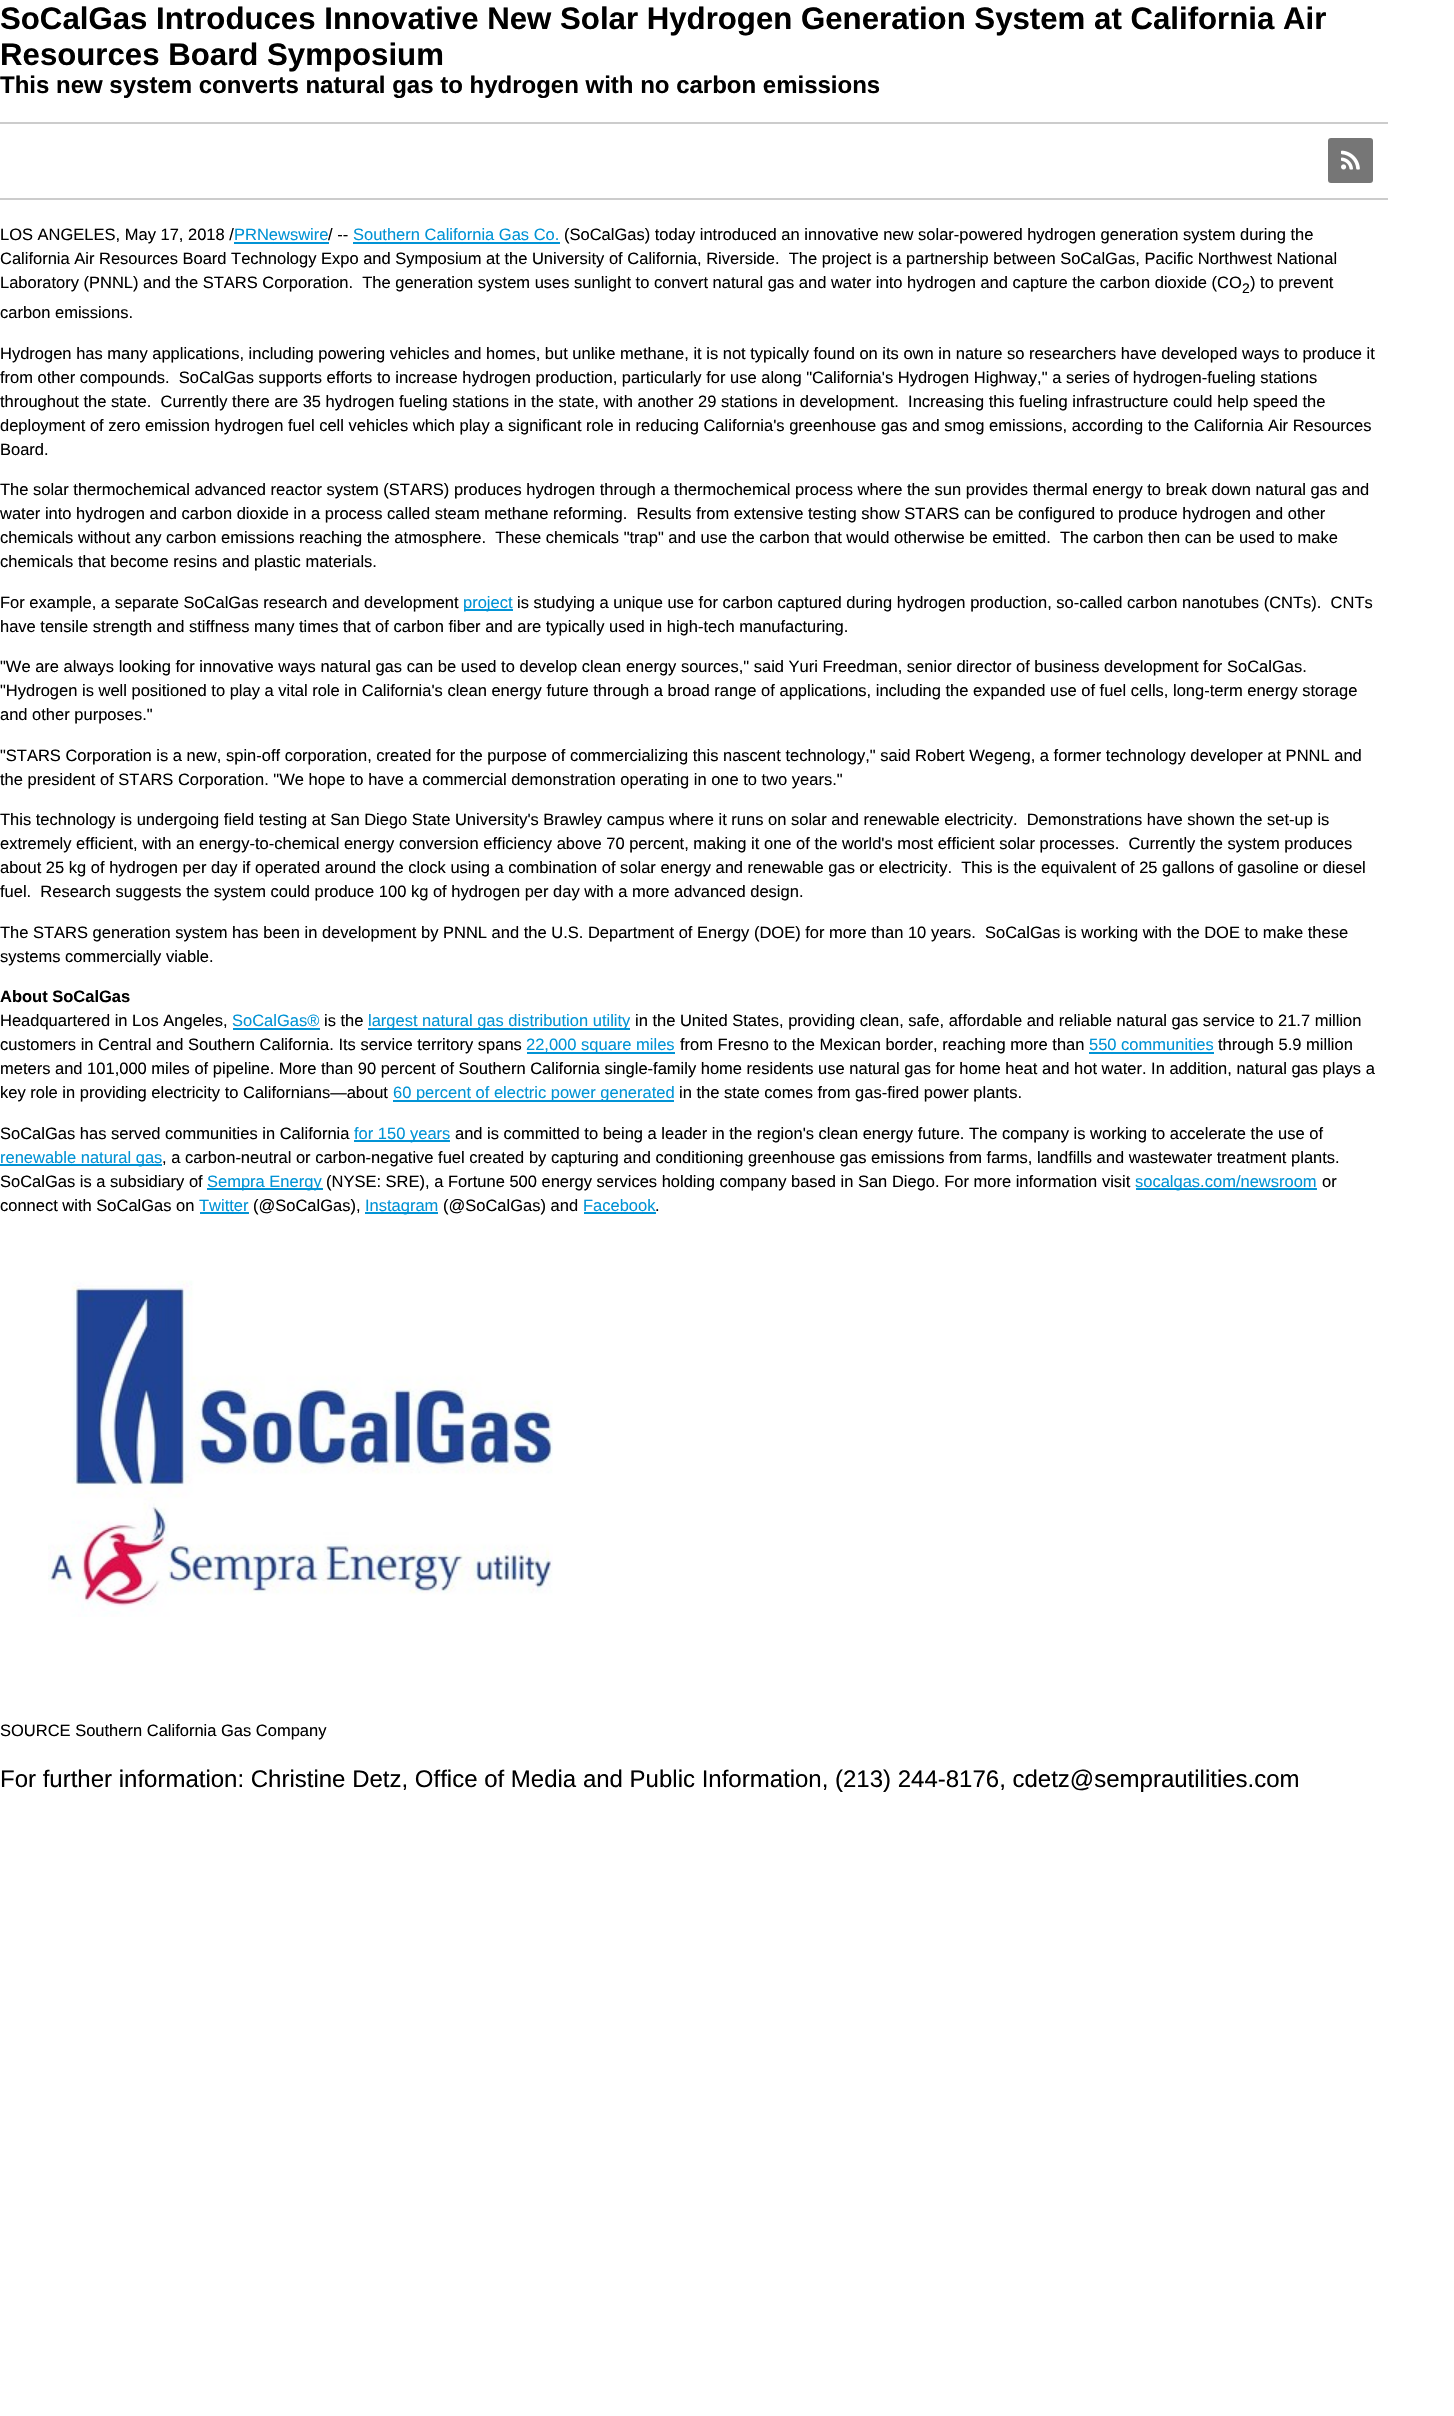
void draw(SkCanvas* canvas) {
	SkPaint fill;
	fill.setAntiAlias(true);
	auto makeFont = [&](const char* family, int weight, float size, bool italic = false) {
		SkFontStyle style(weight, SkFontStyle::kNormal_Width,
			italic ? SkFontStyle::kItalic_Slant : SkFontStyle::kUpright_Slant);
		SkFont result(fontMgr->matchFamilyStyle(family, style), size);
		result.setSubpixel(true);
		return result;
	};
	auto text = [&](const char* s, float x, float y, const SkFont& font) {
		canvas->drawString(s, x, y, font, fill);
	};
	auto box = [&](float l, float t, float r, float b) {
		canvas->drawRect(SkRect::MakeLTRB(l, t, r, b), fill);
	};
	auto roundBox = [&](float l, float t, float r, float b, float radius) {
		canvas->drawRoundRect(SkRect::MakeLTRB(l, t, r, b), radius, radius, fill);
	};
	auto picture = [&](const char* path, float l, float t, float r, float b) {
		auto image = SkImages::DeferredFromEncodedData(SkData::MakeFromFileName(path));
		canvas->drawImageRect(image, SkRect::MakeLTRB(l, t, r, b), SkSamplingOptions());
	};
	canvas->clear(0xFFFFFFFF);
	fill.setColor(0xFFCCCCCC);
	box(0, 122, 1388, 124);
	box(0, 198, 1388, 200);
	fill.setColor(0xFF767676);
	roundBox(1328, 138, 1373, 183, 3);
	picture("image0.png", 1341, 150, 1360, 170);
	fill.setColor(0xFF0193D5);
	box(234, 242, 329, 244);
	box(353, 242, 560, 244);
	box(464, 609, 513, 611);
	box(233, 1028, 320, 1030);
	box(368, 1028, 630, 1030);
	box(527, 1052, 675, 1054);
	box(1089, 1052, 1214, 1054);
	box(393, 1100, 674, 1102);
	box(354, 1140, 450, 1142);
	box(0, 1164, 162, 1166);
	box(207, 1188, 323, 1190);
	box(1136, 1188, 1317, 1190);
	box(200, 1212, 249, 1214);
	box(365, 1212, 438, 1214);
	box(584, 1212, 656, 1214);
	picture("image1.png", 48, 1280, 553, 1617);
	auto font1 = makeFont("Liberation Sans", 700, 31.2f);
	fill.setColor(0xFF000000);
	text("SoCalGas Introduces Innovative New Solar Hydrogen Generation System at California Air", 0, 29, font1);
	text("Resources Board Symposium", 0, 65, font1);
	auto font2 = makeFont("Liberation Sans", 700, 24);
	text("This new system converts natural gas to hydrogen with no carbon emissions", 0, 93, font2);
	auto font3 = makeFont("Liberation Sans", 400, 16.5f);
	text("LOS ANGELES, May 17, 2018 /", 0, 240, font3);
	fill.setColor(0xFF0193D5);
	text("PRNewswire", 234, 240, font3);
	fill.setColor(0xFF000000);
	text("/ --", 328, 240, font3);
	fill.setColor(0xFF0193D5);
	text("Southern California Gas Co.", 353, 240, font3);
	fill.setColor(0xFF000000);
	text("(SoCalGas) today introduced an innovative new solar-powered hydrogen generation system during the", 564, 240, font3);
	text("California Air Resources Board Technology Expo and Symposium at the University of California, Riverside.  The project is a partnership between SoCalGas, Pacific Northwest National", 0, 264, font3);
	text("Laboratory (PNNL) and the STARS Corporation.  The generation system uses sunlight to convert natural gas and water into hydrogen and capture the carbon dioxide (CO", 0, 288, font3);
	auto font4 = makeFont("Liberation Sans", 400, 14);
	text("2", 1242, 293, font4);
	text(") to prevent", 1250, 288, font3);
	text("carbon emissions.", 0, 318, font3);
	text("Hydrogen has many applications, including powering vehicles and homes, but unlike methane, it is not typically found on its own in nature so researchers have developed ways to produce it", 0, 359, font3);
	text("from other compounds.  SoCalGas supports efforts to increase hydrogen production, particularly for use along \"California's Hydrogen Highway,\" a series of hydrogen-fueling stations", 0, 383, font3);
	text("throughout the state.  Currently there are 35 hydrogen fueling stations in the state, with another 29 stations in development.  Increasing this fueling infrastructure could help speed the", 0, 407, font3);
	text("deployment of zero emission hydrogen fuel cell vehicles which play a significant role in reducing California's greenhouse gas and smog emissions, according to the California Air Resources", 0, 431, font3);
	text("Board.", 0, 455, font3);
	text("The solar thermochemical advanced reactor system (STARS) produces hydrogen through a thermochemical process where the sun provides thermal energy to break down natural gas and", 0, 495, font3);
	text("water into hydrogen and carbon dioxide in a process called steam methane reforming.  Results from extensive testing show STARS can be configured to produce hydrogen and other", 0, 519, font3);
	text("chemicals without any carbon emissions reaching the atmosphere.  These chemicals \"trap\" and use the carbon that would otherwise be emitted.  The carbon then can be used to make", 0, 543, font3);
	text("chemicals that become resins and plastic materials.", 0, 567, font3);
	text("For example, a separate SoCalGas research and development", 0, 608, font3);
	fill.setColor(0xFF0193D5);
	text("project", 463, 608, font3);
	fill.setColor(0xFF000000);
	text("is studying a unique use for carbon captured during hydrogen production, so-called carbon nanotubes (CNTs).  CNTs", 517, 608, font3);
	text("have tensile strength and stiffness many times that of carbon fiber and are typically used in high-tech manufacturing.", 0, 632, font3);
	text("\"We are always looking for innovative ways natural gas can be used to develop clean energy sources,\" said Yuri Freedman, senior director of business development for SoCalGas.", 0, 672, font3);
	text("\"Hydrogen is well positioned to play a vital role in California's clean energy future through a broad range of applications, including the expanded use of fuel cells, long-term energy storage", 0, 696, font3);
	text("and other purposes.\"", 0, 720, font3);
	text("\"STARS Corporation is a new, spin-off corporation, created for the purpose of commercializing this nascent technology,\" said Robert Wegeng, a former technology developer at PNNL and", 0, 761, font3);
	text("the president of STARS Corporation. \"We hope to have a commercial demonstration operating in one to two years.\"", 0, 785, font3);
	text("This technology is undergoing field testing at San Diego State University's Brawley campus where it runs on solar and renewable electricity.  Demonstrations have shown the set-up is", 0, 825, font3);
	text("extremely efficient, with an energy-to-chemical energy conversion efficiency above 70 percent, making it one of the world's most efficient solar processes.  Currently the system produces", 0, 849, font3);
	text("about 25 kg of hydrogen per day if operated around the clock using a combination of solar energy and renewable gas or electricity.  This is the equivalent of 25 gallons of gasoline or diesel", 0, 873, font3);
	text("fuel.  Research suggests the system could produce 100 kg of hydrogen per day with a more advanced design.", 0, 897, font3);
	text("The STARS generation system has been in development by PNNL and the U.S. Department of Energy (DOE) for more than 10 years.  SoCalGas is working with the DOE to make these", 0, 938, font3);
	text("systems commercially viable.", 0, 962, font3);
	auto font5 = makeFont("Liberation Sans", 700, 16.5f);
	text("About SoCalGas", 0, 1002, font5);
	text("Headquartered in Los Angeles,", 0, 1026, font3);
	fill.setColor(0xFF0193D5);
	text("SoCalGas®", 232, 1026, font3);
	fill.setColor(0xFF000000);
	text("is the", 324, 1026, font3);
	fill.setColor(0xFF0193D5);
	text("largest natural gas distribution utility", 368, 1026, font3);
	fill.setColor(0xFF000000);
	text("in the United States, providing clean, safe, affordable and reliable natural gas service to 21.7 million", 635, 1026, font3);
	text("customers in Central and Southern California. Its service territory spans", 0, 1050, font3);
	fill.setColor(0xFF0193D5);
	text("22,000 square miles", 526, 1050, font3);
	fill.setColor(0xFF000000);
	text("from Fresno to the Mexican border, reaching more than", 680, 1050, font3);
	fill.setColor(0xFF0193D5);
	text("550 communities", 1089, 1050, font3);
	fill.setColor(0xFF000000);
	text("through 5.9 million", 1218, 1050, font3);
	text("meters and 101,000 miles of pipeline. More than 90 percent of Southern California single-family home residents use natural gas for home heat and hot water. In addition, natural gas plays a", 0, 1074, font3);
	text("key role in providing electricity to Californians—about", 0, 1098, font3);
	fill.setColor(0xFF0193D5);
	text("60 percent of electric power generated", 393, 1098, font3);
	fill.setColor(0xFF000000);
	text("in the state comes from gas-fired power plants.", 679, 1098, font3);
	text("SoCalGas has served communities in California", 0, 1139, font3);
	fill.setColor(0xFF0193D5);
	text("for 150 years", 354, 1139, font3);
	fill.setColor(0xFF000000);
	text("and is committed to being a leader in the region's clean energy future. The company is working to accelerate the use of", 455, 1139, font3);
	fill.setColor(0xFF0193D5);
	text("renewable natural gas", 0, 1163, font3);
	fill.setColor(0xFF000000);
	text(", a carbon-neutral or carbon-negative fuel created by capturing and conditioning greenhouse gas emissions from farms, landfills and wastewater treatment plants.", 162, 1163, font3);
	text("SoCalGas is a subsidiary of", 0, 1187, font3);
	fill.setColor(0xFF0193D5);
	text("Sempra Energy", 207, 1187, font3);
	fill.setColor(0xFF000000);
	text("(NYSE: SRE), a Fortune 500 energy services holding company based in San Diego. For more information visit", 326, 1187, font3);
	fill.setColor(0xFF0193D5);
	text("socalgas.com/newsroom", 1135, 1187, font3);
	fill.setColor(0xFF000000);
	text("or", 1322, 1187, font3);
	text("connect with SoCalGas on", 0, 1211, font3);
	fill.setColor(0xFF0193D5);
	text("Twitter", 199, 1211, font3);
	fill.setColor(0xFF000000);
	text("(@SoCalGas),", 253, 1211, font3);
	fill.setColor(0xFF0193D5);
	text("Instagram", 365, 1211, font3);
	fill.setColor(0xFF000000);
	text("(@SoCalGas) and", 443, 1211, font3);
	fill.setColor(0xFF0193D5);
	text("Facebook", 583, 1211, font3);
	fill.setColor(0xFF000000);
	text(".", 655, 1211, font3);
	text("SOURCE Southern California Gas Company", 0, 1736, font3);
	auto font6 = makeFont("Liberation Sans", 400, 24);
	text("For further information: Christine Detz, Office of Media and Public Information, (213) 244-8176, cdetz@semprautilities.com", 0, 1787, font6);
}
